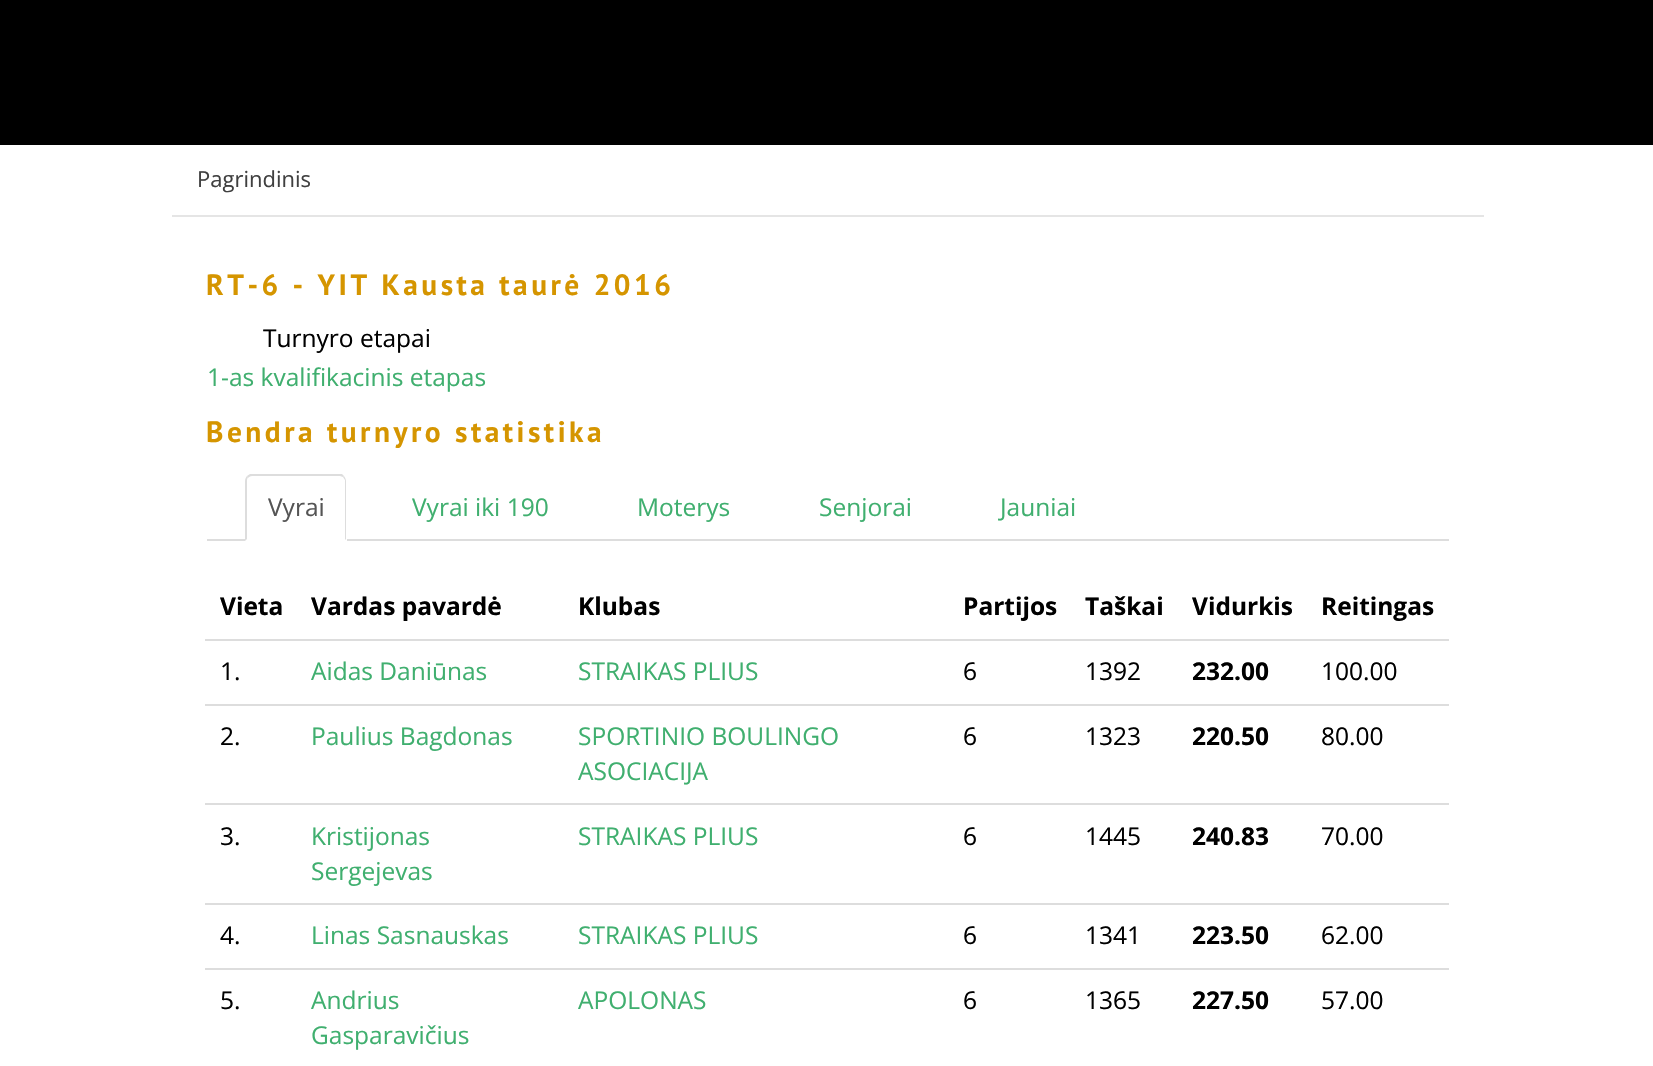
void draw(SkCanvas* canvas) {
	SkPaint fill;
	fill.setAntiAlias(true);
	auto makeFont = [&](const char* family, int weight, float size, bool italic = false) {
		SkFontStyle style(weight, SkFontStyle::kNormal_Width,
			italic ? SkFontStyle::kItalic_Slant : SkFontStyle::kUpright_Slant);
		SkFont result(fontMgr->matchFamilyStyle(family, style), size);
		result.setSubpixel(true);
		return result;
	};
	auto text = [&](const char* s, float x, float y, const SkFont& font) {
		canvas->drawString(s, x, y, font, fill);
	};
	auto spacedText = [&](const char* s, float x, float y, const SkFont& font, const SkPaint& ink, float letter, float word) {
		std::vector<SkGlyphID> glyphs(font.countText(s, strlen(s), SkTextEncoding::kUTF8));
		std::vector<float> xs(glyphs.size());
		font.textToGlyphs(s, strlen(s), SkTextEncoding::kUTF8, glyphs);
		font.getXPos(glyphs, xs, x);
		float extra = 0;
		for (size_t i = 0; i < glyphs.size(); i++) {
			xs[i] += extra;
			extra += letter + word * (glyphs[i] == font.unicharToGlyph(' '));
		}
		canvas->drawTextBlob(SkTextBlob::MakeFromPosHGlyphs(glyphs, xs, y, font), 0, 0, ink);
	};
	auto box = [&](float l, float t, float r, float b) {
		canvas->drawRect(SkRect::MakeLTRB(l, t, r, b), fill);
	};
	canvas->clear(0xFFFFFFFF);
	fill.setColor(0xFF000000);
	box(0, 0, 1653, 145);
	fill.setColor(0xFFE5E5E5);
	box(172, 215, 1484, 217);
	fill.setColor(0xFFDDDDDD);
	box(207, 539, 1449, 541);
	fill.setColor(0xFFFFFFFF);
	canvas->drawPath(SkPathBuilder().moveTo(252, 474).lineTo(340, 474).cubicTo(344, 474, 347, 477, 347, 481).lineTo(347, 541).lineTo(245, 541).lineTo(245, 481).cubicTo(245, 477, 248, 474, 252, 474).close().detach(), fill);
	fill.setColor(0xFFDDDDDD);
	canvas->drawPath(SkPathBuilder().moveTo(252, 476).cubicTo(250, 476, 249, 477, 248, 478).lineTo(247, 476).lineTo(250, 474).lineTo(342, 474).lineTo(344, 476).lineTo(343, 477).lineTo(340, 476).close().detach(), fill);
	canvas->drawPath(SkPathBuilder().moveTo(344, 476).cubicTo(345, 478, 346, 479, 346, 481).lineTo(346, 540).lineTo(345, 539).lineTo(345, 480).lineTo(343, 477).close().detach(), fill);
	canvas->drawPath(SkPathBuilder().moveTo(245, 541).lineTo(247, 539).lineTo(247, 481).cubicTo(247, 480, 247, 478, 248, 478).lineTo(247, 476).cubicTo(246, 477, 245, 479, 245, 481).close().detach(), fill);
	box(205, 639, 1449, 641);
	box(205, 704, 1449, 706);
	box(205, 803, 1449, 805);
	box(205, 903, 1449, 905);
	box(205, 968, 1449, 970);
	auto font1 = makeFont("Open Sans", 400, 22);
	fill.setColor(0xFF404040);
	text("Pagrindinis", 197, 187, font1);
	auto font2 = makeFont("PT Sans", 700, 29.4f);
	fill.setColor(0xFFD59500);
	spacedText("RT-6 - YIT Kausta taurė 2016", 206, 295, font2, fill, 3.5f, 0);
	auto font3 = makeFont("Open Sans", 400, 24.5f);
	fill.setColor(0xFF000000);
	text("Turnyro etapai", 263, 347, font3);
	fill.setColor(0xFF40AF6F);
	text("1-as kvalifikacinis etapas", 207, 386, font3);
	fill.setColor(0xFFD59500);
	spacedText("Bendra turnyro statistika", 206, 442, font2, fill, 3.5f, 0);
	fill.setColor(0xFF555555);
	text("Vyrai", 268, 516, font3);
	fill.setColor(0xFF40AF6F);
	text("Vyrai iki 190", 412, 516, font3);
	text("Moterys", 637, 516, font3);
	text("Senjorai", 819, 516, font3);
	text("Jauniai", 1000, 516, font3);
	auto font4 = makeFont("Open Sans", 700, 24.5f);
	fill.setColor(0xFF000000);
	text("Vieta", 220, 615, font4);
	text("Vardas pavardė", 311, 615, font4);
	text("Klubas", 578, 615, font4);
	text("Partijos", 963, 615, font4);
	text("Taškai", 1085, 615, font4);
	text("Vidurkis", 1192, 615, font4);
	text("Reitingas", 1321, 615, font4);
	text("1.", 220, 680, font3);
	fill.setColor(0xFF40AF6F);
	text("Aidas Daniūnas", 311, 680, font3);
	text("STRAIKAS PLIUS", 578, 680, font3);
	fill.setColor(0xFF000000);
	text("6", 963, 680, font3);
	text("1392", 1085, 680, font3);
	text("232.00", 1192, 680, font4);
	text("100.00", 1321, 680, font3);
	text("2.", 220, 745, font3);
	fill.setColor(0xFF40AF6F);
	text("Paulius Bagdonas", 311, 745, font3);
	text("SPORTINIO BOULINGO", 578, 745, font3);
	text("ASOCIACIJA", 578, 780, font3);
	fill.setColor(0xFF000000);
	text("6", 963, 745, font3);
	text("1323", 1085, 745, font3);
	text("220.50", 1192, 745, font4);
	text("80.00", 1321, 745, font3);
	text("3.", 220, 845, font3);
	fill.setColor(0xFF40AF6F);
	text("Kristijonas", 311, 845, font3);
	text("Sergejevas", 311, 880, font3);
	text("STRAIKAS PLIUS", 578, 845, font3);
	fill.setColor(0xFF000000);
	text("6", 963, 845, font3);
	text("1445", 1085, 845, font3);
	text("240.83", 1192, 845, font4);
	text("70.00", 1321, 845, font3);
	text("4.", 220, 944, font3);
	fill.setColor(0xFF40AF6F);
	text("Linas Sasnauskas", 311, 944, font3);
	text("STRAIKAS PLIUS", 578, 944, font3);
	fill.setColor(0xFF000000);
	text("6", 963, 944, font3);
	text("1341", 1085, 944, font3);
	text("223.50", 1192, 944, font4);
	text("62.00", 1321, 944, font3);
	text("5.", 220, 1009, font3);
	fill.setColor(0xFF40AF6F);
	text("Andrius", 311, 1009, font3);
	text("Gasparavičius", 311, 1044, font3);
	text("APOLONAS", 578, 1009, font3);
	fill.setColor(0xFF000000);
	text("6", 963, 1009, font3);
	text("1365", 1085, 1009, font3);
	text("227.50", 1192, 1009, font4);
	text("57.00", 1321, 1009, font3);
}
